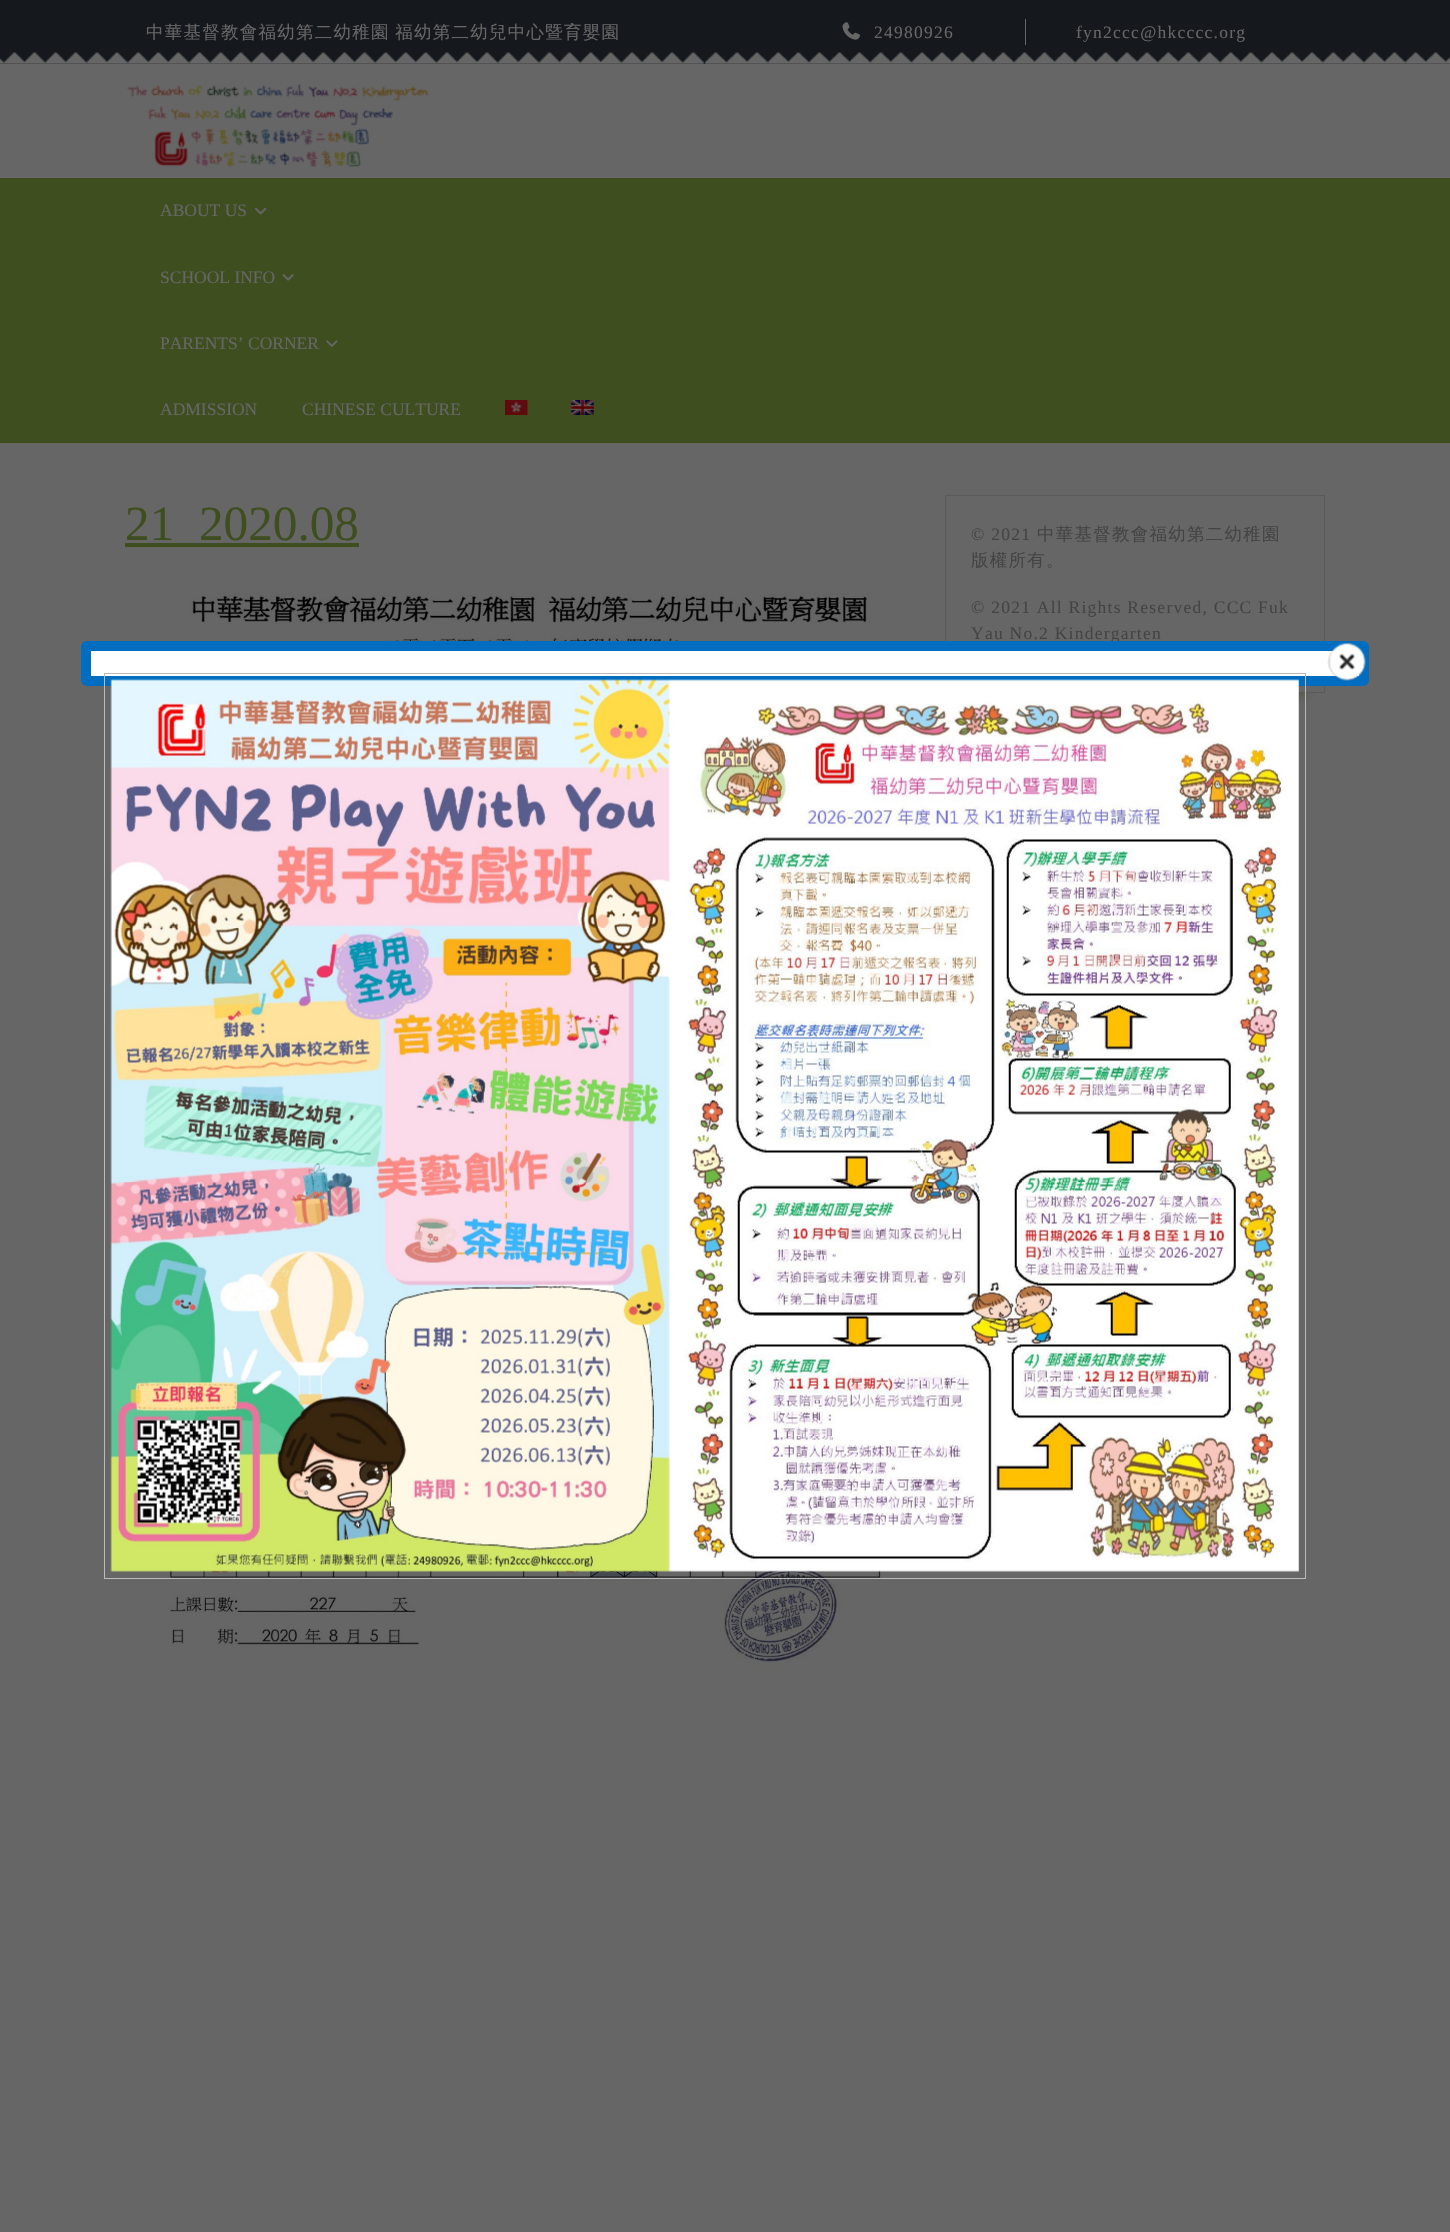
void draw(SkCanvas* canvas) {
	SkPaint fill;
	fill.setAntiAlias(true);
	auto makeFont = [&](const char* family, int weight, float size, bool italic = false) {
		SkFontStyle style(weight, SkFontStyle::kNormal_Width,
			italic ? SkFontStyle::kItalic_Slant : SkFontStyle::kUpright_Slant);
		SkFont result(fontMgr->matchFamilyStyle(family, style), size);
		result.setSubpixel(true);
		return result;
	};
	auto text = [&](const char* s, float x, float y, const SkFont& font) {
		canvas->drawString(s, x, y, font, fill);
	};
	auto spacedText = [&](const char* s, float x, float y, const SkFont& font, const SkPaint& ink, float letter, float word) {
		std::vector<SkGlyphID> glyphs(font.countText(s, strlen(s), SkTextEncoding::kUTF8));
		std::vector<float> xs(glyphs.size());
		font.textToGlyphs(s, strlen(s), SkTextEncoding::kUTF8, glyphs);
		font.getXPos(glyphs, xs, x);
		float extra = 0;
		for (size_t i = 0; i < glyphs.size(); i++) {
			xs[i] += extra;
			extra += letter + word * (glyphs[i] == font.unicharToGlyph(' '));
		}
		canvas->drawTextBlob(SkTextBlob::MakeFromPosHGlyphs(glyphs, xs, y, font), 0, 0, ink);
	};
	auto box = [&](float l, float t, float r, float b) {
		canvas->drawRect(SkRect::MakeLTRB(l, t, r, b), fill);
	};
	auto picture = [&](const char* path, float l, float t, float r, float b) {
		auto image = SkImages::DeferredFromEncodedData(SkData::MakeFromFileName(path));
		canvas->drawImageRect(image, SkRect::MakeLTRB(l, t, r, b), SkSamplingOptions());
	};
	canvas->clear(0xFF666666);
	fill.setColor(0xFF15181D);
	box(0, 0, 1450, 64);
	picture("image0.png", 842, 22, 860, 40);
	fill.setColor(0xFF666666);
	box(1025, 19, 1026, 45);
	picture("image1.png", 0, 52, 1450, 64);
	picture("image2.png", 127, 83, 428, 168);
	fill.setColor(0xFF3E4E1F);
	box(0, 178, 1450, 443);
	picture("image3.png", 255, 207, 267, 215);
	picture("image4.png", 282, 274, 294, 281);
	picture("image5.png", 326, 340, 338, 347);
	picture("image6.png", 505, 400, 528, 415);
	picture("image7.png", 571, 400, 594, 415);
	box(125, 543, 359, 547);
	picture("image8.png", 164, 593, 886, 1670);
	canvas->save();
	canvas->clipRect(SkRect::MakeLTRB(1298, 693, 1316, 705));
	fill.setMaskFilter(SkMaskFilter::MakeBlur(kNormal_SkBlurStyle, 6));
	canvas->drawRect(SkRect::MakeLTRB(964, 533, 1306, 693), fill);
	fill.setMaskFilter(nullptr);
	canvas->restore();
	fill.setStyle(SkPaint::kStroke_Style);
	fill.setStrokeWidth(1);
	fill.setColor(0xFF5A5A5A);
	canvas->drawRect(SkRect::MakeLTRB(945.5f, 495.5f, 1324.5f, 692.5f), fill);
	auto font1 = makeFont("WenQuanYi Zen Hei", 500, 17.5f);
	fill.setStyle(SkPaint::kFill_Style);
	fill.setColor(0xFF666666);
	spacedText("中華基督教會福幼第二幼稚園 福幼第二幼兒中心暨育嬰園", 146, 38, font1, fill, 1.25f, -1);
	auto font2 = makeFont("Liberation Serif", 400, 17.5f);
	spacedText("24980926", 874, 38, font2, fill, 1.25f, 0);
	spacedText("fyn2ccc@hkcccc.org", 1076, 38, font2, fill, 1.25f, 0);
	text("ABOUT US", 160, 216, font2);
	text("SCHOOL INFO", 160, 283, font2);
	text("PARENTS’ CORNER", 160, 349, font2);
	text("ADMISSION", 160, 415, font2);
	text("CHINESE CULTURE", 302, 415, font2);
	auto font3 = makeFont("Liberation Serif", 400, 49.25f);
	fill.setColor(0xFF3E4E1F);
	text("21_2020.08", 125, 540, font3);
	fill.setColor(0xFF444444);
	spacedText("© 2021", 971, 540, font2, fill, 1.25f, 0);
	spacedText("中華基督教會福幼第二幼稚園", 1037, 540, font1, fill, 1.25f, 0);
	spacedText("版權所有。", 971, 566, font1, fill, 1.25f, 0);
	spacedText("© 2021 All Rights Reserved, CCC Fuk", 971, 613, font2, fill, 1.25f, 0);
	spacedText("Yau No.2 Kindergarten", 971, 639, font2, fill, 1.25f, 0);
	fill.setColor(0xFFFFFFFF);
	canvas->drawRoundRect(SkRect::MakeLTRB(86, 646, 1364, 681), 1, 1, fill);
	fill.setStyle(SkPaint::kStroke_Style);
	fill.setStrokeWidth(10);
	fill.setColor(0xFF006DC1);
	canvas->drawRoundRect(SkRect::MakeLTRB(86, 646, 1364, 681), 1, 1, fill);
	fill.setStrokeWidth(1);
	fill.setColor(0xFFBBBBBB);
	canvas->drawRect(SkRect::MakeLTRB(104.5f, 673.5f, 1305.5f, 1578.5f), fill);
	picture("image9.png", 110, 679, 1299, 1572);
	picture("image10.png", 1327, 642, 1367, 682);
}
